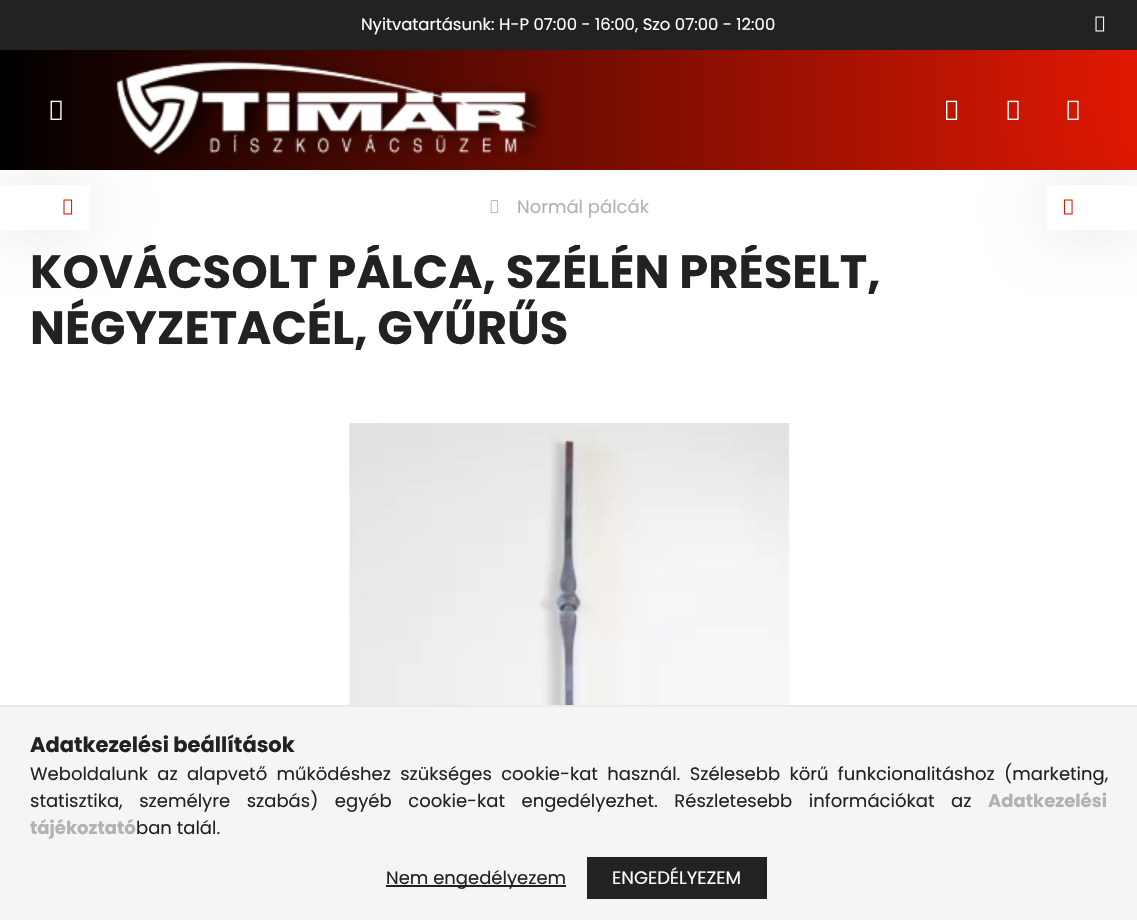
void draw(SkCanvas* canvas) {
	SkPaint fill;
	fill.setAntiAlias(true);
	auto makeFont = [&](const char* family, int weight, float size, bool italic = false) {
		SkFontStyle style(weight, SkFontStyle::kNormal_Width,
			italic ? SkFontStyle::kItalic_Slant : SkFontStyle::kUpright_Slant);
		SkFont result(fontMgr->matchFamilyStyle(family, style), size);
		result.setSubpixel(true);
		return result;
	};
	auto text = [&](const char* s, float x, float y, const SkFont& font) {
		canvas->drawString(s, x, y, font, fill);
	};
	auto spacedText = [&](const char* s, float x, float y, const SkFont& font, const SkPaint& ink, float letter, float word) {
		std::vector<SkGlyphID> glyphs(font.countText(s, strlen(s), SkTextEncoding::kUTF8));
		std::vector<float> xs(glyphs.size());
		font.textToGlyphs(s, strlen(s), SkTextEncoding::kUTF8, glyphs);
		font.getXPos(glyphs, xs, x);
		float extra = 0;
		for (size_t i = 0; i < glyphs.size(); i++) {
			xs[i] += extra;
			extra += letter + word * (glyphs[i] == font.unicharToGlyph(' '));
		}
		canvas->drawTextBlob(SkTextBlob::MakeFromPosHGlyphs(glyphs, xs, y, font), 0, 0, ink);
	};
	auto box = [&](float l, float t, float r, float b) {
		canvas->drawRect(SkRect::MakeLTRB(l, t, r, b), fill);
	};
	auto picture = [&](const char* path, float l, float t, float r, float b) {
		auto image = SkImages::DeferredFromEncodedData(SkData::MakeFromFileName(path));
		canvas->drawImageRect(image, SkRect::MakeLTRB(l, t, r, b), SkSamplingOptions());
	};
	canvas->clear(0xFFFFFFFF);
	fill.setColor(0xFF222222);
	box(0, 0, 1137, 50);
	picture("image0.png", 1095, 16, 1105, 32);
	{
		const SkColor colors[] = {0xFF000000, 0xFFE11802};
		const float stops[] = {0, 1};
		const SkPoint ends[] = {{0, 110}, {1137, 109}};
		fill.setShader(SkGradientShader::MakeLinear(ends, colors, stops, 2, SkTileMode::kClamp));
		fill.setAlpha(255);
	}
	box(0, 50, 1137, 170);
	picture("image1.png", 50, 100, 62, 120);
	picture("image2.png", 116, 60, 546, 159);
	picture("image3.png", 946, 100, 958, 120);
	picture("image4.png", 1007, 100, 1019, 120);
	picture("image5.png", 1067, 100, 1079, 120);
	fill.setShader(nullptr);
	fill.setColor(0x1A000000);
	fill.setMaskFilter(SkMaskFilter::MakeBlur(kNormal_SkBlurStyle, 30));
	canvas->drawRect(SkRect::MakeLTRB(0, 185, 90, 230), fill);
	fill.setMaskFilter(nullptr);
	fill.setColor(0xFFFFFFFF);
	box(0, 185, 90, 230);
	picture("image6.png", 63, 199, 73, 215);
	picture("image7.png", 490, 200, 499, 213);
	fill.setColor(0x1A000000);
	fill.setMaskFilter(SkMaskFilter::MakeBlur(kNormal_SkBlurStyle, 30));
	canvas->drawRect(SkRect::MakeLTRB(1047, 185, 1137, 230), fill);
	fill.setMaskFilter(nullptr);
	fill.setColor(0xFFFFFFFF);
	box(1047, 185, 1137, 230);
	picture("image8.png", 1063, 199, 1073, 215);
	picture("image9.png", 349, 423, 790, 705);
	fill.setColor(0xFFF5F5F5);
	box(0, 707, 1137, 920);
	fill.setColor(0xFFEAEAEA);
	box(0, 705, 1137, 707);
	fill.setColor(0xFF222222);
	box(386, 885, 566, 887);
	{
		const SkColor colors[] = {0xFF000000, 0xFFE11802, 0xFF222222, 0xFF222222};
		const float stops[] = {0, 0.33f, 0.67f, 1};
		const SkPoint ends[] = {{227, 878}, {767, 878}};
		fill.setShader(SkGradientShader::MakeLinear(ends, colors, stops, 4, SkTileMode::kClamp));
		fill.setAlpha(255);
	}
	box(587, 857, 767, 899);
	auto font1 = makeFont("Poppins", 400, 16.5f);
	fill.setShader(nullptr);
	fill.setColor(0xFFFFFFFF);
	text("Nyitvatartásunk: H-P 07:00 - 16:00, Szo 07:00 - 12:00", 361, 30, font1);
	auto font2 = makeFont("Poppins", 400, 18);
	fill.setColor(0xFFB1B2B3);
	text("Normál pálcák", 517, 213, font2);
	canvas->save();
	canvas->clipRect(SkRect::MakeLTRB(30, 245, 1107, 356));
	auto font3 = makeFont("Poppins", 700, 46.5f);
	fill.setColor(0xFF222222);
	text("KOVÁCSOLT PÁLCA, SZÉLÉN PRÉSELT,", 30, 288, font3);
	canvas->restore();
	text("NÉGYZETACÉL, GYŰRŰS", 30, 344, font3);
	auto font4 = makeFont("Poppins", 700, 21);
	text("Adatkezelési beállítások", 30, 752, font4);
	spacedText("Weboldalunk az alapvető működéshez szükséges cookie-kat használ. Szélesebb körű funkcionalitáshoz (marketing,", 30, 780, font2, fill, 0, 4.5f);
	spacedText("statisztika, személyre szabás) egyéb cookie-kat engedélyezhet. Részletesebb információkat az", 30, 807, font2, fill, 0, 11.75f);
	auto font5 = makeFont("Poppins", 700, 18);
	fill.setColor(0xFFB1B2B3);
	text("Adatkezelési", 988, 807, font5);
	text("tájékoztató", 30, 834, font5);
	fill.setColor(0xFF222222);
	text("ban talál.", 136, 834, font2);
	text("Nem engedélyezem", 386, 884, font2);
	fill.setColor(0xFFFFFFFF);
	text("ENGEDÉLYEZEM", 612, 884, font2);
}
